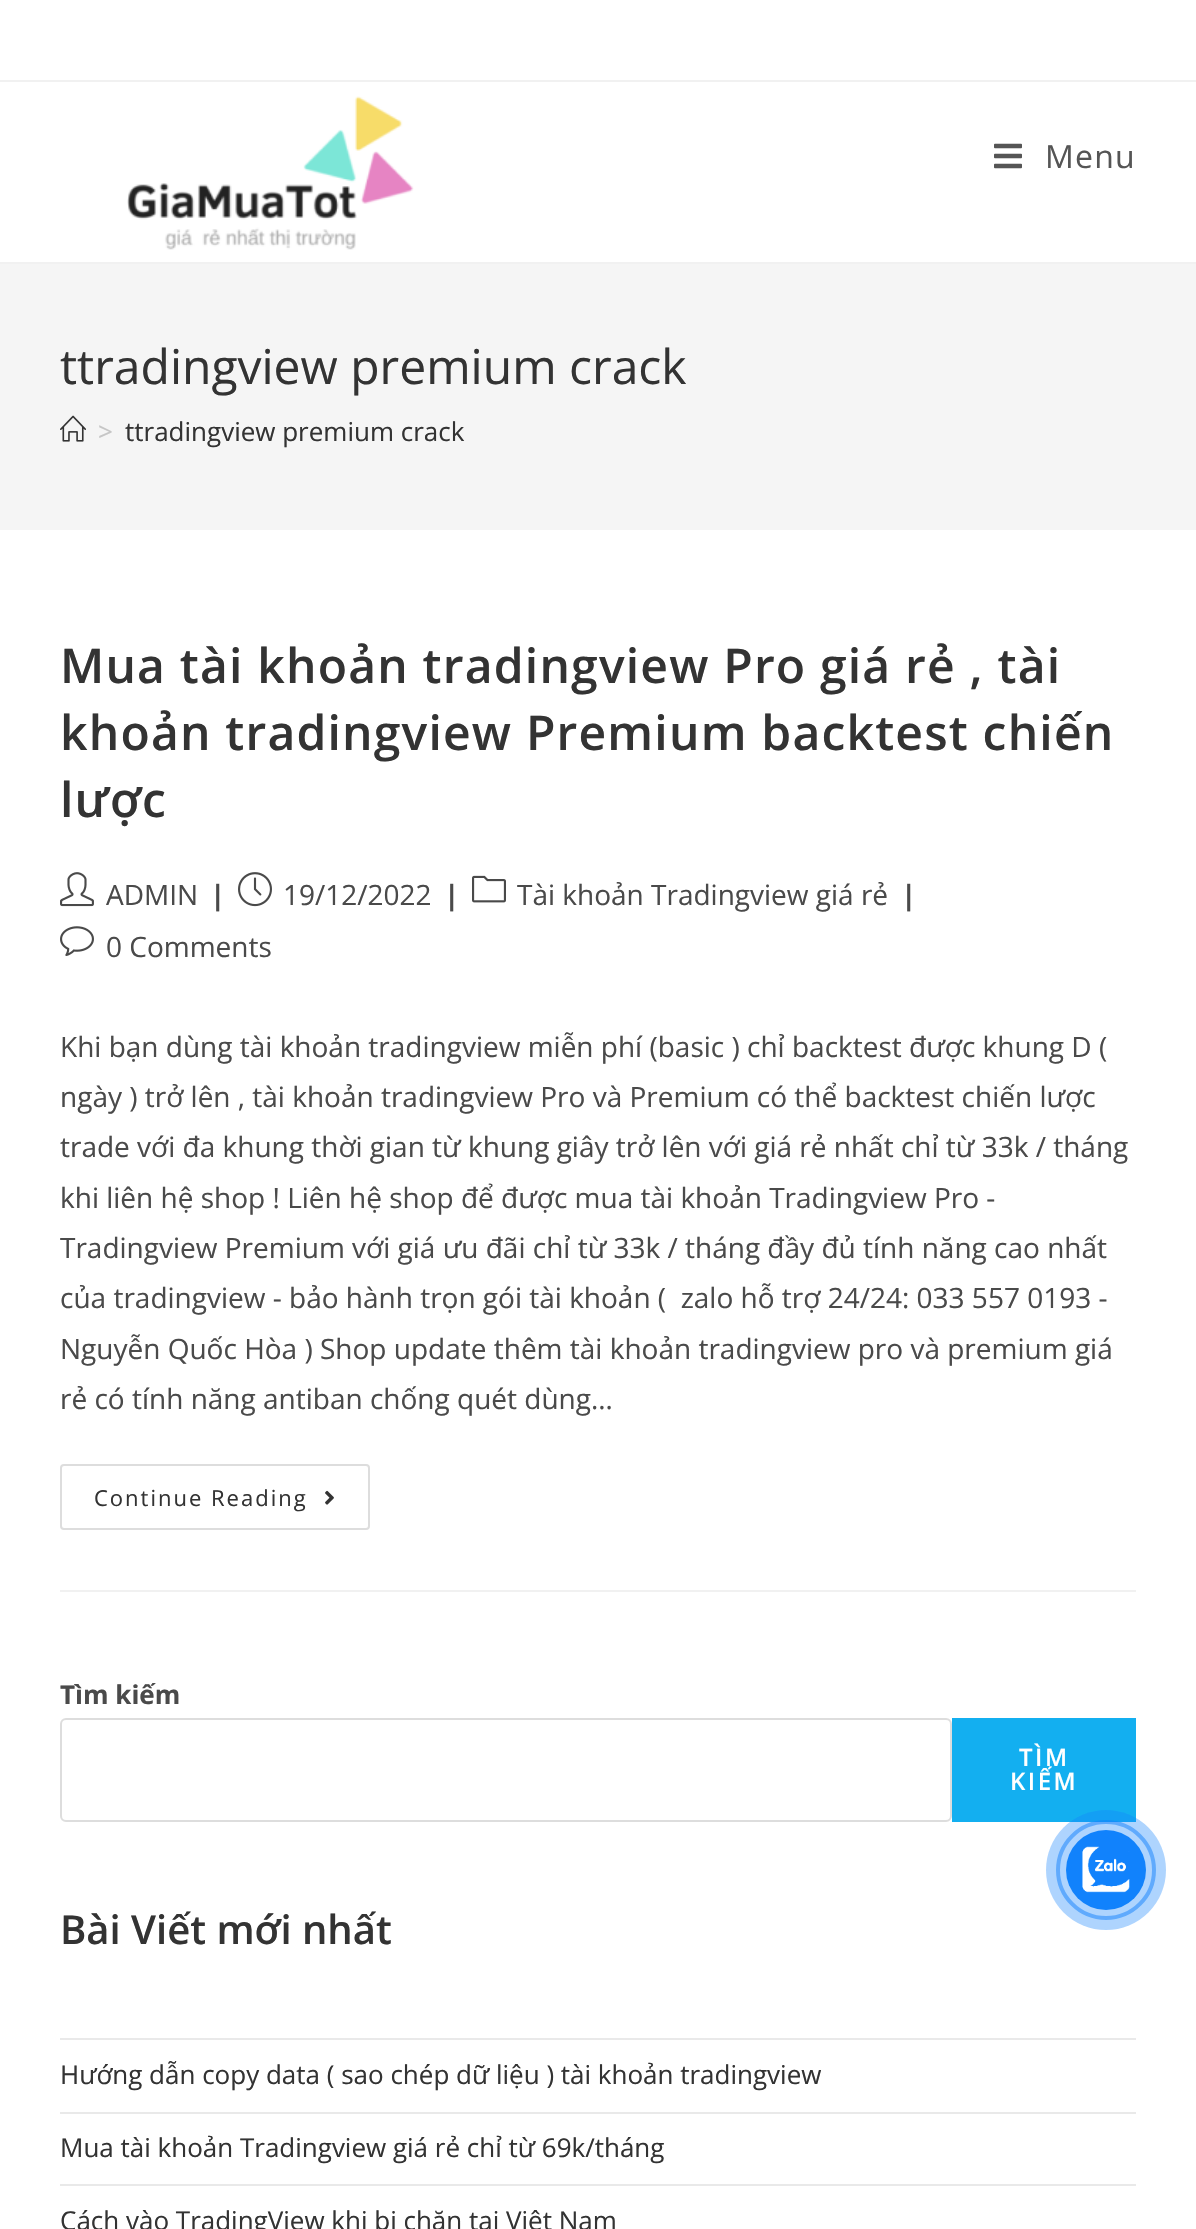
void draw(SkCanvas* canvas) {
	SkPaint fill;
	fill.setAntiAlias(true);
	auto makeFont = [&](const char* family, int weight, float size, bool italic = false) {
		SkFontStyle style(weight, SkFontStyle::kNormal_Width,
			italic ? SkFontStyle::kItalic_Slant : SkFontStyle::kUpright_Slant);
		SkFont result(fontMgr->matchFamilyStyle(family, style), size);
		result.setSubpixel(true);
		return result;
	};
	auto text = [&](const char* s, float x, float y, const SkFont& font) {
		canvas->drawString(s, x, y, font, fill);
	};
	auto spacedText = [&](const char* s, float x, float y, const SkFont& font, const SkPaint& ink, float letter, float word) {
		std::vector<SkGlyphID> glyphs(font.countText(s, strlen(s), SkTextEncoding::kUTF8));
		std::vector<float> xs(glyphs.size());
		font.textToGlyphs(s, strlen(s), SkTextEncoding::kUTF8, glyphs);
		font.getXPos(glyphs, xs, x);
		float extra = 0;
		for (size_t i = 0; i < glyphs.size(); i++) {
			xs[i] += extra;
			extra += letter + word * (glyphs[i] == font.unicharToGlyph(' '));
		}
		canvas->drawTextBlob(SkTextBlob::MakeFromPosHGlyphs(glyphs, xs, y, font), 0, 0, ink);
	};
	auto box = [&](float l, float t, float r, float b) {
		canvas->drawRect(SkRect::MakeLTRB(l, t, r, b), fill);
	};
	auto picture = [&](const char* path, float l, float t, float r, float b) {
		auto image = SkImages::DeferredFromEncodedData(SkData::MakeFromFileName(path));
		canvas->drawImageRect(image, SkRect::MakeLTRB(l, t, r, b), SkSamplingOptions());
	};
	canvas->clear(0xFFFFFFFF);
	fill.setColor(0xFFF1F1F1);
	box(0, 80, 1196, 82);
	box(0, 262, 1196, 264);
	picture("image0.png", 127, 96, 414, 250);
	picture("image1.png", 994, 143, 1022, 169);
	fill.setColor(0xFFF5F5F5);
	box(0, 264, 1196, 530);
	picture("image2.png", 60, 415, 86, 442);
	fill.setColor(0xFFF1F1F1);
	box(60, 1590, 1136, 1592);
	picture("image3.png", 60, 872, 94, 907);
	picture("image4.png", 238, 872, 272, 907);
	picture("image5.png", 472, 875, 506, 903);
	picture("image6.png", 60, 926, 94, 956);
	fill.setStyle(SkPaint::kStroke_Style);
	fill.setStrokeWidth(2);
	fill.setColor(0xFFDDDDDD);
	canvas->drawRoundRect(SkRect::MakeLTRB(61, 1465, 369, 1529), 3, 3, fill);
	picture("image7.png", 325, 1490, 334, 1505);
	canvas->drawRoundRect(SkRect::MakeLTRB(61, 1719, 951, 1821), 5, 5, fill);
	fill.setStyle(SkPaint::kFill_Style);
	fill.setColor(0xFF13AFF0);
	box(952, 1718, 1136, 1822);
	fill.setColor(0xFFE9E9E9);
	box(60, 2038, 1136, 2040);
	box(60, 2112, 1136, 2114);
	box(60, 2184, 1136, 2186);
	fill.setStyle(SkPaint::kStroke_Style);
	fill.setStrokeWidth(4);
	fill.setColor(0x801182FC);
	canvas->drawCircle(1106, 1870, 48, fill);
	fill.setStyle(SkPaint::kFill_Style);
	fill.setColor(0x571182FC);
	canvas->drawCircle(1106, 1870, 60, fill);
	fill.setColor(0xFF1182FC);
	canvas->drawCircle(1106, 1870, 40, fill);
	picture("image8.png", 1082, 1846, 1130, 1893);
	auto font1 = makeFont("Open Sans", 400, 32);
	fill.setColor(0xFF555555);
	spacedText("Menu", 1045, 168, font1, fill, 1.2f, 0);
	auto font2 = makeFont("Open Sans", 400, 48);
	fill.setColor(0xFF333333);
	text("ttradingview premium crack", 60, 384, font2);
	auto font3 = makeFont("Open Sans", 400, 26);
	fill.setColor(0xFFC6C6C6);
	text(">", 98, 441, font3);
	fill.setColor(0xFF333333);
	text("ttradingview premium crack", 125, 441, font3);
	auto font4 = makeFont("Open Sans", 600, 48);
	spacedText("Mua tài khoản tradingview Pro giá rẻ , tài", 60, 683, font4, fill, 1.2f, 0);
	spacedText("khoản tradingview Premium backtest chiến", 60, 750, font4, fill, 1.2f, 0);
	spacedText("lược", 60, 817, font4, fill, 1.2f, 0);
	auto font5 = makeFont("Open Sans", 400, 28);
	fill.setColor(0xFF4A4A4A);
	text("ADMIN", 106, 905, font5);
	auto font6 = makeFont("Open Sans", 700, 28);
	text("|", 210, 905, font6);
	text("19/12/2022", 283, 905, font5);
	text("|", 444, 905, font6);
	text("Tài khoản Tradingview giá rẻ", 517, 905, font5);
	text("|", 901, 905, font6);
	text("0 Comments", 106, 957, font5);
	text("Khi bạn dùng tài khoản tradingview miễn phí (basic ) chỉ backtest được khung D (", 60, 1057, font5);
	text("ngày ) trở lên , tài khoản tradingview Pro và Premium có thể backtest chiến lược", 60, 1107, font5);
	text("trade với đa khung thời gian từ khung giây trở lên với giá rẻ nhất chỉ từ 33k / tháng", 60, 1157, font5);
	text("khi liên hệ shop ! Liên hệ shop để được mua tài khoản Tradingview Pro -", 60, 1208, font5);
	text("Tradingview Premium với giá ưu đãi chỉ từ 33k / tháng đầy đủ tính năng cao nhất", 60, 1258, font5);
	text("của tradingview - bảo hành trọn gói tài khoản (  zalo hỗ trợ 24/24: 033 557 0193 -", 60, 1308, font5);
	text("Nguyễn Quốc Hòa ) Shop update thêm tài khoản tradingview pro và premium giá", 60, 1359, font5);
	text("rẻ có tính năng antiban chống quét dùng…", 60, 1409, font5);
	auto font7 = makeFont("Open Sans", 400, 22);
	fill.setColor(0xFF333333);
	spacedText("Continue Reading", 94, 1506, font7, fill, 2, 0);
	auto font8 = makeFont("Open Sans", 700, 26);
	fill.setColor(0xFF4A4A4A);
	text("Tìm kiếm", 60, 1704, font8);
	auto font9 = makeFont("Open Sans", 600, 24);
	fill.setColor(0xFFFFFFFF);
	spacedText("TÌM", 1019, 1766, font9, fill, 2.5f, 0);
	spacedText("KIẾM", 1010, 1790, font9, fill, 2.5f, 0);
	auto font10 = makeFont("Open Sans", 600, 40);
	fill.setColor(0xFF333333);
	text("Bài Viết mới nhất", 60, 1944, font10);
	text("Hướng dẫn copy data ( sao chép dữ liệu ) tài khoản tradingview", 60, 2084, font3);
	text("Mua tài khoản Tradingview giá rẻ chỉ từ 69k/tháng", 60, 2157, font3);
	text("Cách vào TradingView khi bị chặn tại Việt Nam", 60, 2230, font3);
}
